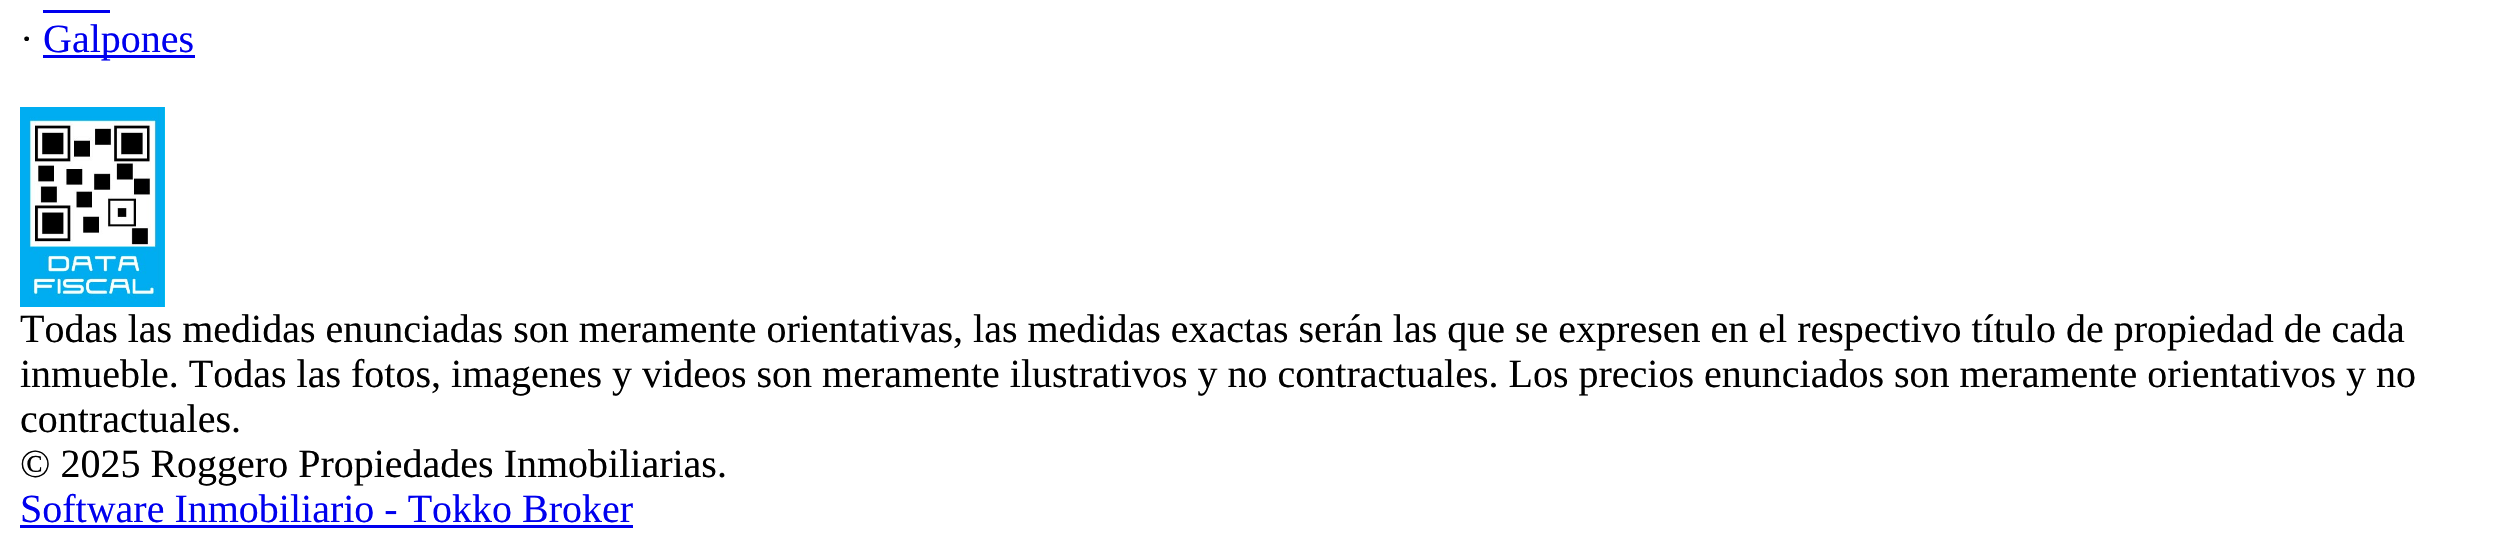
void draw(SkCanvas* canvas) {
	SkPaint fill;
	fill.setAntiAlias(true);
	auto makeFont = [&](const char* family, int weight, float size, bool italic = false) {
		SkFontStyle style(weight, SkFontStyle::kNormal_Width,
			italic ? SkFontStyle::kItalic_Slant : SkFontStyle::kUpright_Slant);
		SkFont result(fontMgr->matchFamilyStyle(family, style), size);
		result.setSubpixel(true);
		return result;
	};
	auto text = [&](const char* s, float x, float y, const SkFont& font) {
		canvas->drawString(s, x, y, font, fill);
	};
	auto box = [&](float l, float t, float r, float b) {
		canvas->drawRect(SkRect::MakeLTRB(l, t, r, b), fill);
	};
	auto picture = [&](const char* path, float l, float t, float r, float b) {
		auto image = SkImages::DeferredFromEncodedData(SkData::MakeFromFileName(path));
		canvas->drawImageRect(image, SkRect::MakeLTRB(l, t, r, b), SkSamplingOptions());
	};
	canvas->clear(0xFFFFFFFF);
	fill.setColor(0xFF0000EE);
	box(43, 10, 110, 13);
	box(43, 55, 195, 58);
	picture("image0.png", 20, 107, 165, 307);
	box(20, 525, 633, 528);
	auto font1 = makeFont("Liberation Serif", 400, 40);
	fill.setColor(0xFF000000);
	text("·", 20, 52, font1);
	fill.setColor(0xFF0000EE);
	text("Galpones", 43, 52, font1);
	fill.setColor(0xFF000000);
	text("Todas las medidas enunciadas son meramente orientativas, las medidas exactas serán las que se expresen en el respectivo título de propiedad de cada", 20, 342, font1);
	text("inmueble. Todas las fotos, imagenes y videos son meramente ilustrativos y no contractuales. Los precios enunciados son meramente orientativos y no", 20, 387, font1);
	text("contractuales.", 20, 432, font1);
	text("© 2025 Roggero Propiedades Inmobiliarias.", 20, 477, font1);
	fill.setColor(0xFF0000EE);
	text("Software Inmobiliario - Tokko Broker", 20, 522, font1);
}
